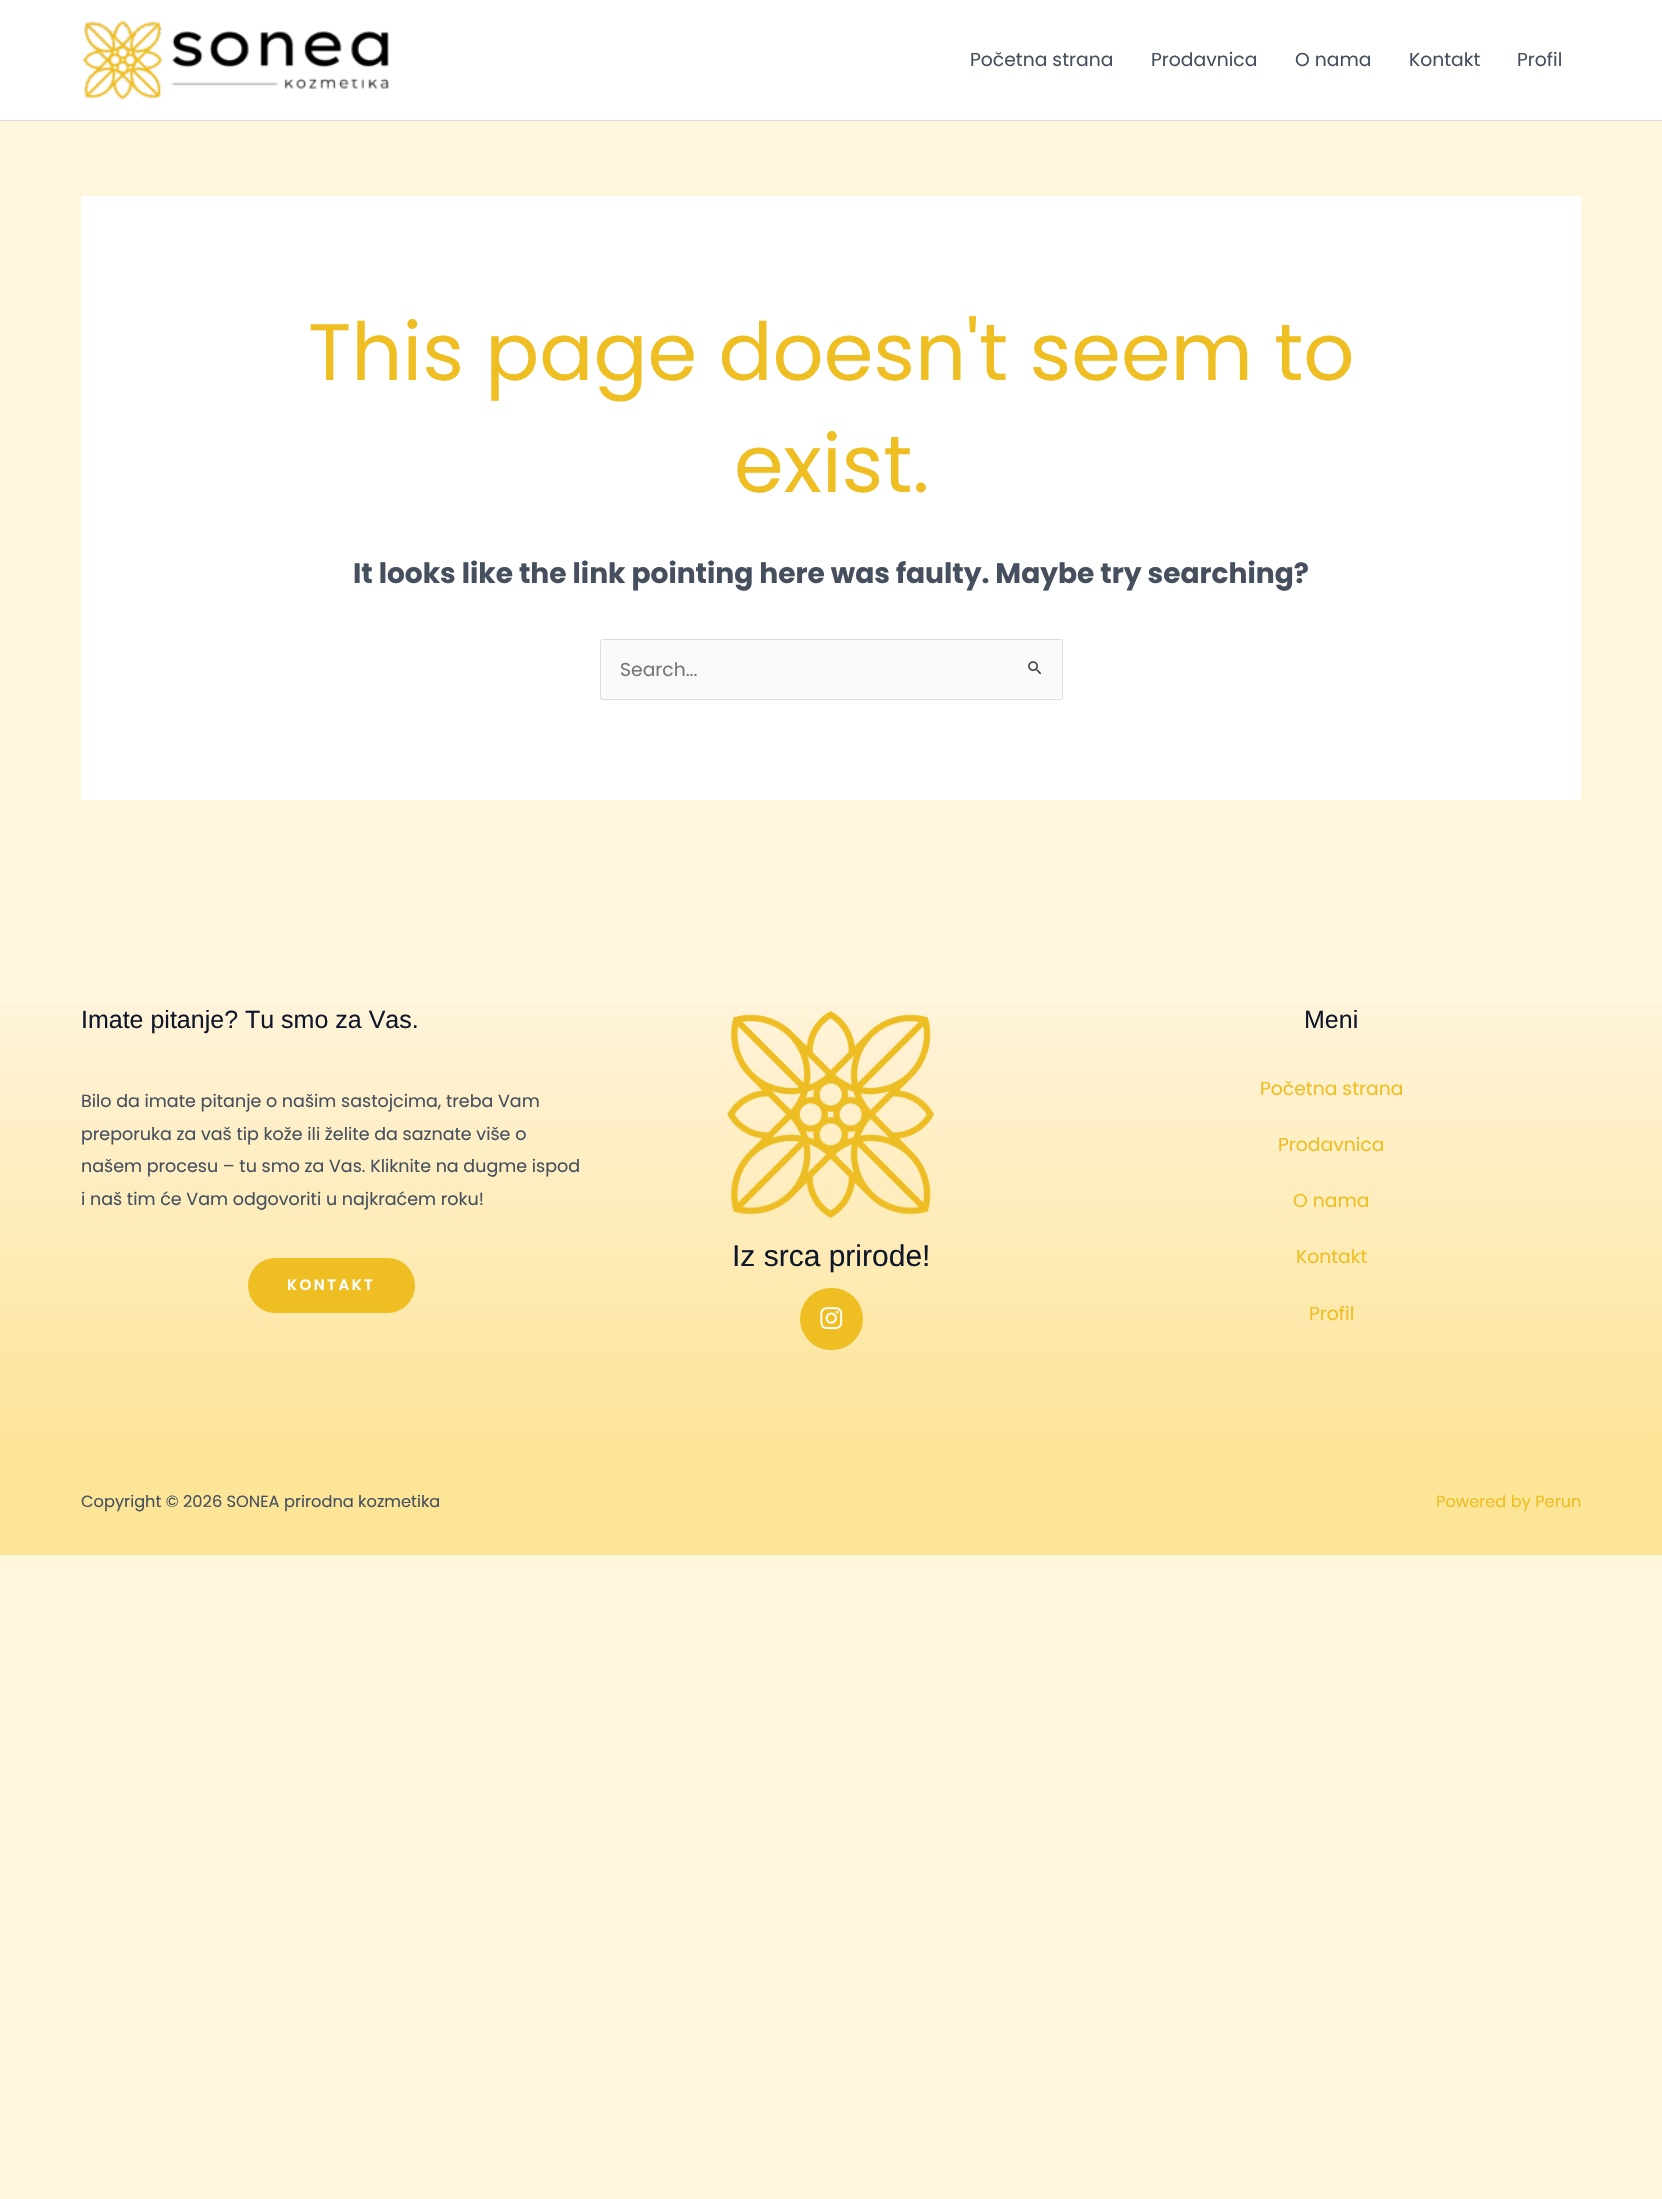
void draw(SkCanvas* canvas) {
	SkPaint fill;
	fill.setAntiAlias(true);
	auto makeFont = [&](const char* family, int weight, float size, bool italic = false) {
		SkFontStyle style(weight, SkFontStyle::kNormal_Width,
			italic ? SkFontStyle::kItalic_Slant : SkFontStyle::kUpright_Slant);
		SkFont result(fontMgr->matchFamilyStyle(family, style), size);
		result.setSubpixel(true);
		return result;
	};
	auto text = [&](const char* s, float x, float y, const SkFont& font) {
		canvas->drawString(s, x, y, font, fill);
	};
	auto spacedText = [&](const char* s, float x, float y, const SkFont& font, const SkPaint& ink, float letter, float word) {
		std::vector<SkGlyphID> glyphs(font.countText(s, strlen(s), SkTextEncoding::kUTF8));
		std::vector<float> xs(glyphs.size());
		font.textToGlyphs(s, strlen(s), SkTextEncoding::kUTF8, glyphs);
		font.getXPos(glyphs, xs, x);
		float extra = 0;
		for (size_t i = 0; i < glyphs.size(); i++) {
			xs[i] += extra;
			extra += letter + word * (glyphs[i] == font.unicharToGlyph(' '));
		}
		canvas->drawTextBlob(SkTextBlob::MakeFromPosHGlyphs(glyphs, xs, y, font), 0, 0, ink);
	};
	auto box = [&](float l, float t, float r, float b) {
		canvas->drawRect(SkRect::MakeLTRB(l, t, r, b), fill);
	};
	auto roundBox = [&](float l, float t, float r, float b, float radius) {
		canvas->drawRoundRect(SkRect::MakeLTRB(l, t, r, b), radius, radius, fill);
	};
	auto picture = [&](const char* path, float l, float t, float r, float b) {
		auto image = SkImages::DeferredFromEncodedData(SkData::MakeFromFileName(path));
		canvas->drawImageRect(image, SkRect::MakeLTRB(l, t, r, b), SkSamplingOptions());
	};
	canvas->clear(0xFFFFF6DB);
	fill.setColor(0xFFFFFFFF);
	box(0, 0, 1662, 120);
	fill.setColor(0xFFDDDDDD);
	box(0, 120, 1662, 121);
	picture("image0.png", 82, 20, 389, 100);
	fill.setColor(0xFFFFFFFF);
	box(81, 196, 1581, 800);
	fill.setColor(0xFFFAFAFA);
	canvas->drawRoundRect(SkRect::MakeLTRB(600.5f, 639.5f, 1062.5f, 699.5f), 2, 2, fill);
	fill.setStyle(SkPaint::kStroke_Style);
	fill.setStrokeWidth(1);
	fill.setColor(0xFFDDDDDD);
	canvas->drawRoundRect(SkRect::MakeLTRB(600.5f, 639.5f, 1062.5f, 699.5f), 2, 2, fill);
	picture("image1.png", 1028, 661, 1041, 675);
	fill.setStyle(SkPaint::kFill_Style);
	{
		const SkColor colors[] = {0xFFFFF4DC, 0xFFFDE498};
		const float stops[] = {0.2f, 1};
		const SkPoint ends[] = {{831, 875}, {831, 1450}};
		fill.setShader(SkGradientShader::MakeLinear(ends, colors, stops, 2, SkTileMode::kClamp));
		fill.setAlpha(255);
	}
	box(0, 1004, 1662, 1450);
	fill.setShader(nullptr);
	fill.setColor(0xFFEEBE23);
	roundBox(248, 1258, 415, 1313, 27.5f);
	picture("image2.png", 727, 1011, 935, 1218);
	roundBox(800, 1288, 863, 1350, 31);
	picture("image3.png", 820, 1307, 843, 1330);
	fill.setColor(0xFFFDE597);
	box(0, 1450, 1662, 1555);
	auto font1 = makeFont("Poppins", 400, 18.75f);
	fill.setColor(0xFF454F5E);
	text("Početna strana", 970, 66, font1);
	text("Prodavnica", 1151, 66, font1);
	text("O nama", 1295, 66, font1);
	text("Kontakt", 1409, 66, font1);
	text("Profil", 1517, 66, font1);
	auto font2 = makeFont("Poppins", 400, 80);
	fill.setColor(0xFFEEBE23);
	text("This page doesn't seem to", 308, 380, font2);
	text("exist.", 734, 492, font2);
	auto font3 = makeFont("Poppins", 700, 28.1f);
	fill.setColor(0xFF454F5E);
	text("It looks like the link pointing here was faulty. Maybe try searching?", 353, 583, font3);
	fill.setColor(0xFF757575);
	text("Search...", 620, 676, font1);
	auto font4 = makeFont("Liberation Sans", 400, 25);
	fill.setColor(0xFF0F172A);
	text("Imate pitanje? Tu smo za Vas.", 81, 1028, font4);
	auto font5 = makeFont("Poppins", 400, 17.5f);
	fill.setColor(0xFF454F5E);
	text("Bilo da imate pitanje o našim sastojcima, treba Vam", 81, 1107, font5);
	text("preporuka za vaš tip kože ili želite da saznate više o", 81, 1140, font5);
	text("našem procesu – tu smo za Vas. Kliknite na dugme ispod", 81, 1172, font5);
	text("i naš tim će Vam odgovoriti u najkraćem roku!", 81, 1205, font5);
	auto font6 = makeFont("Poppins", 600, 15);
	fill.setColor(0xFFFFFFFF);
	spacedText("KONTAKT", 287, 1290, font6, fill, 2.5f, 0);
	auto font7 = makeFont("Liberation Sans", 400, 30);
	fill.setColor(0xFF0F172A);
	text("Iz srca prirode!", 732, 1266, font7);
	text("Meni", 1304, 1028, font4);
	fill.setColor(0xFFEEBE23);
	text("Početna strana", 1260, 1095, font1);
	text("Prodavnica", 1278, 1151, font1);
	text("O nama", 1293, 1207, font1);
	text("Kontakt", 1296, 1263, font1);
	text("Profil", 1309, 1320, font1);
	auto font8 = makeFont("Poppins", 400, 16.25f);
	fill.setColor(0xFF454F5E);
	text("Copyright © 2026 SONEA prirodna kozmetika", 81, 1507, font8);
	fill.setColor(0xFFEEBE23);
	text("Powered by Perun", 1436, 1507, font8);
}
